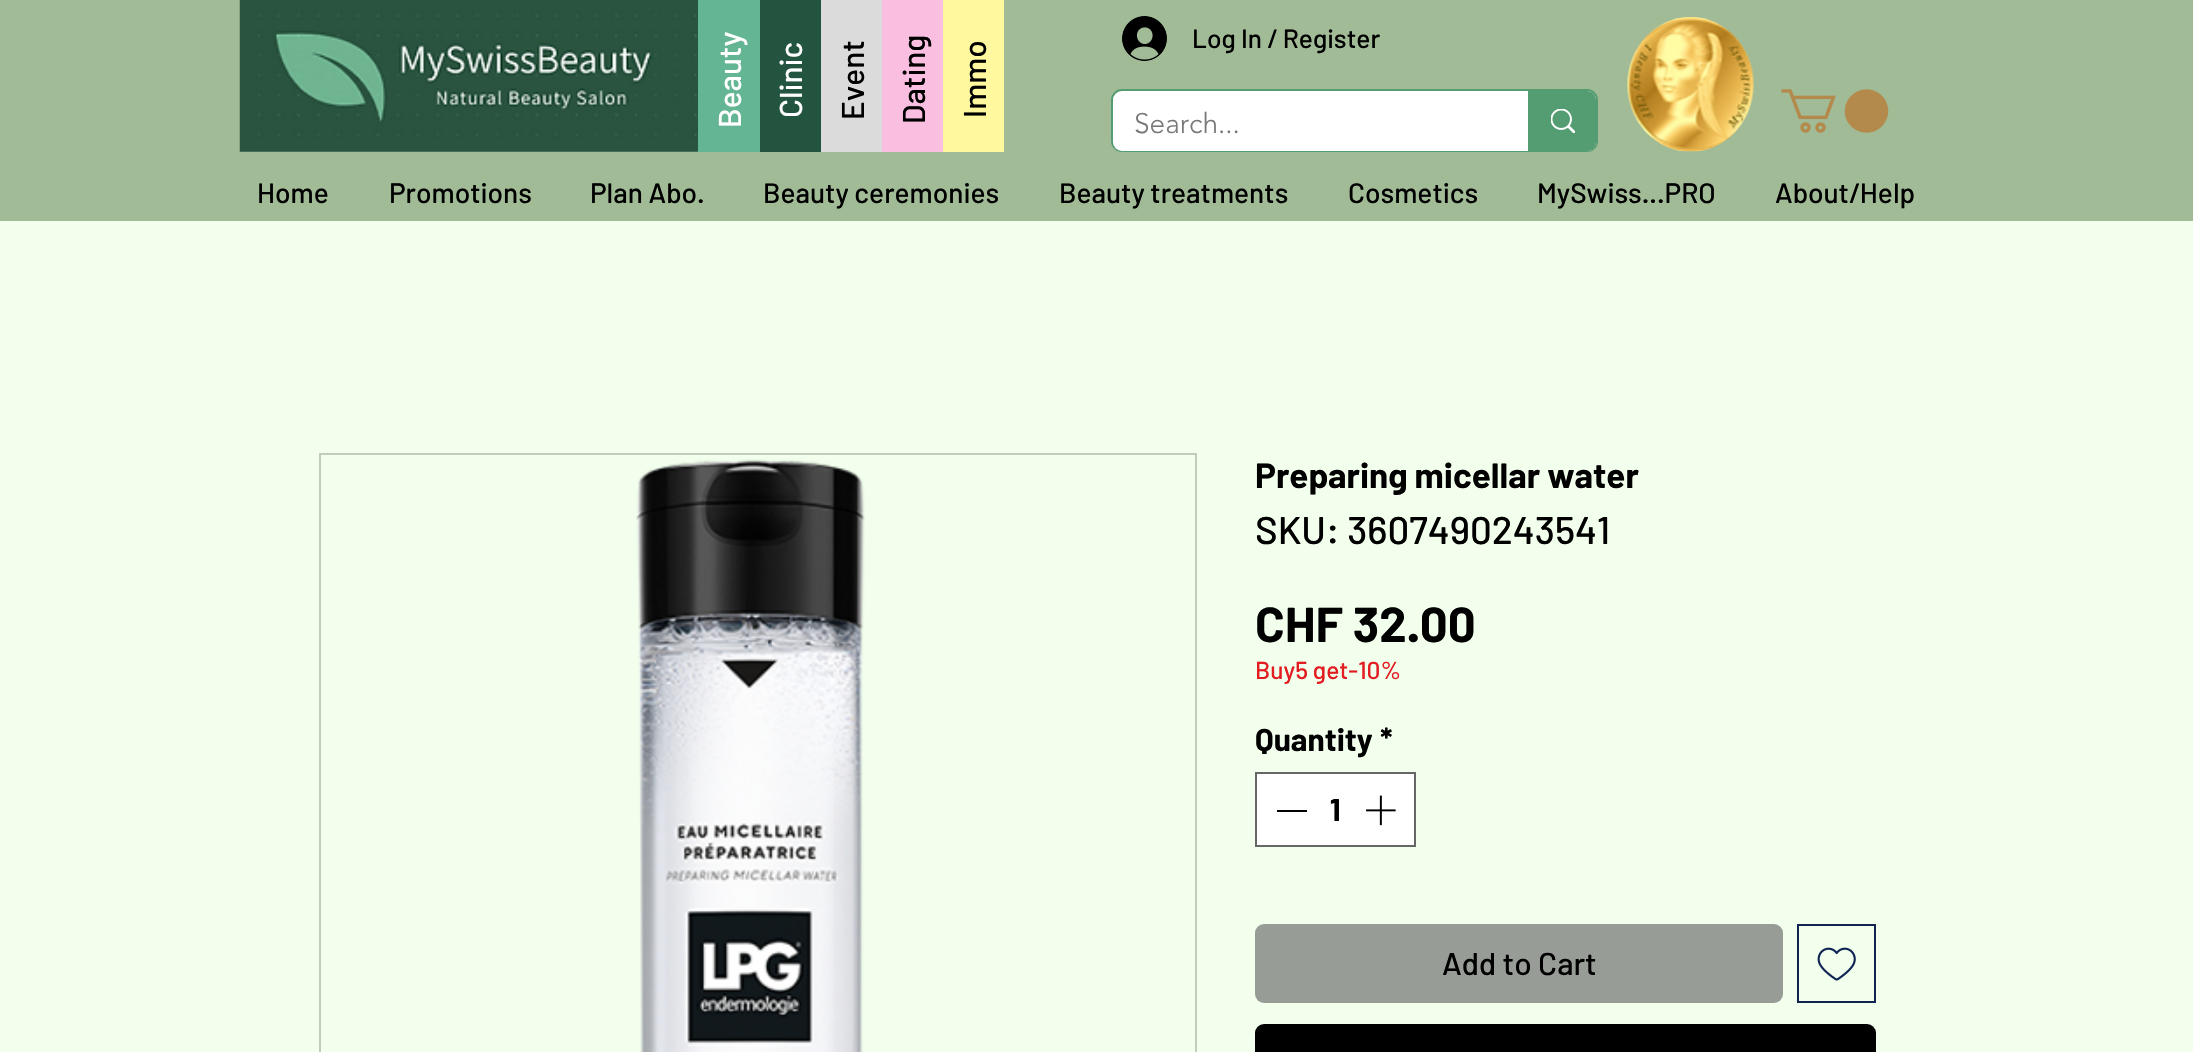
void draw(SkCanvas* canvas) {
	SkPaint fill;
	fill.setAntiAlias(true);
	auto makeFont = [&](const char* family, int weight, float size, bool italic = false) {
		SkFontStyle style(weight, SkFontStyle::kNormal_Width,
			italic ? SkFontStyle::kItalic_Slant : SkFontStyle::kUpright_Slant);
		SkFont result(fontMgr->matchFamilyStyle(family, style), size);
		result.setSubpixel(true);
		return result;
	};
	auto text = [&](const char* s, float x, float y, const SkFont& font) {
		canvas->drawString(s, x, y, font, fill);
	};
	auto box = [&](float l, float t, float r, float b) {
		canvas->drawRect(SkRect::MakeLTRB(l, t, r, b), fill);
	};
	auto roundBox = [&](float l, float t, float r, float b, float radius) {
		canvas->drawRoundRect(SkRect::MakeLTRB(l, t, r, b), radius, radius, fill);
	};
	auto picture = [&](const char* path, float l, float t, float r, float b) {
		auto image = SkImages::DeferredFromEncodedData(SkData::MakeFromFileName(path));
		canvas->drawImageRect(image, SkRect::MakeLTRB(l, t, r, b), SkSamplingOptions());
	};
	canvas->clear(0xFFF2FFED);
	fill.setColor(0xFFA0BB96);
	box(0, 0, 2193, 221);
	picture("image0.png", 239, 0, 698, 152);
	fill.setColor(0xFF63B593);
	box(698, 0, 760, 152);
	fill.setColor(0xFF22543F);
	box(760, 0, 821, 152);
	fill.setColor(0xFFDBDBDB);
	box(821, 0, 882, 152);
	fill.setColor(0xFFFABFE0);
	box(882, 0, 943, 152);
	fill.setColor(0xFFFFF89F);
	box(943, 0, 1004, 152);
	fill.setStyle(SkPaint::kStroke_Style);
	fill.setStrokeWidth(2);
	fill.setColor(0xFF549C71);
	canvas->drawRoundRect(SkRect::MakeLTRB(1112, 90, 1597, 151), 10, 10, fill);
	fill.setStyle(SkPaint::kFill_Style);
	fill.setColor(0xFFFFFFFF);
	roundBox(1113, 91, 1596, 151, 9);
	fill.setColor(0xFF549C71);
	canvas->drawPath(SkPathBuilder().moveTo(1528, 91).lineTo(1587, 91).cubicTo(1592, 91, 1596, 95, 1596, 100).lineTo(1596, 142).cubicTo(1596, 147, 1592, 151, 1587, 151).lineTo(1528, 151).close().detach(), fill);
	picture("image1.png", 1551, 109, 1575, 133);
	picture("image2.png", 1122, 16, 1167, 61);
	picture("image3.png", 1627, 17, 1754, 152);
	picture("image4.png", 1781, 89, 1889, 133);
	fill.setStyle(SkPaint::kStroke_Style);
	fill.setColor(0xFFC2CCBE);
	canvas->drawRect(SkRect::MakeLTRB(320, 454, 1196, 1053), fill);
	picture("image5.png", 636, 459, 865, 1052);
	fill.setStyle(SkPaint::kFill_Style);
	fill.setColor(0xFFFFFFFF);
	canvas->drawRect(SkRect::MakeLTRB(1256, 773, 1415, 846), fill);
	fill.setStyle(SkPaint::kStroke_Style);
	fill.setColor(0xFF666666);
	canvas->drawRect(SkRect::MakeLTRB(1256, 773, 1415, 846), fill);
	fill.setStyle(SkPaint::kFill_Style);
	fill.setColor(0xFF000000);
	box(1277, 810, 1307, 812);
	picture("image6.png", 1366, 795, 1396, 826);
	fill.setColor(0xFF989C97);
	roundBox(1255, 924, 1783, 1003, 9);
	fill.setStyle(SkPaint::kStroke_Style);
	fill.setColor(0xFF0F2453);
	canvas->drawRect(SkRect::MakeLTRB(1798, 925, 1875, 1002), fill);
	picture("image7.png", 1817, 947, 1856, 981);
	fill.setStyle(SkPaint::kFill_Style);
	fill.setColor(0xFF000000);
	roundBox(1255, 1024, 1876, 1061, 9);
	auto font1 = makeFont("Barlow", 500, 31.5f);
	fill.setColor(0xFFFFFFFF);
	canvas->save();
	canvas->rotate(-90, 741, 128);
	text("Beauty", 741, 128, font1);
	canvas->restore();
	canvas->save();
	canvas->rotate(-90, 802, 118);
	text("Clinic", 802, 118, font1);
	canvas->restore();
	fill.setColor(0xFF000000);
	canvas->save();
	canvas->rotate(-90, 864, 120);
	text("Event", 864, 120, font1);
	canvas->restore();
	canvas->save();
	canvas->rotate(-90, 925, 124);
	text("Dating", 925, 124, font1);
	canvas->restore();
	canvas->save();
	canvas->rotate(-90, 986, 118);
	text("Immo", 986, 118, font1);
	canvas->restore();
	auto font2 = makeFont("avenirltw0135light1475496", 300, 28);
	fill.setColor(0xFF787878);
	text("Search...", 1134, 133, font2);
	auto font3 = makeFont("Barlow", 500, 26.25f);
	fill.setColor(0xFF000000);
	text("Log In / Register", 1192, 48, font3);
	auto font4 = makeFont("Barlow", 500, 28);
	text("Home", 257, 203, font4);
	text("Promotions", 389, 203, font4);
	text("Plan Abo.", 590, 203, font4);
	text("Beauty ceremonies", 763, 203, font4);
	text("Beauty treatments", 1059, 203, font4);
	text("Cosmetics", 1348, 203, font4);
	text("MySwiss...PRO", 1537, 203, font4);
	text("About/Help", 1775, 203, font4);
	auto font5 = makeFont("Barlow", 700, 35);
	text("Preparing micellar water", 1255, 488, font5);
	auto font6 = makeFont("Barlow", 500, 38.5f);
	text("SKU: 3607490243541", 1255, 544, font6);
	auto font7 = makeFont("Barlow", 700, 49);
	text("CHF 32.00", 1255, 642, font7);
	auto font8 = makeFont("Barlow", 500, 24.5f);
	fill.setColor(0xFFE21C21);
	text("Buy5 get-10%", 1255, 679, font8);
	auto font9 = makeFont("Barlow", 700, 31.5f);
	fill.setColor(0xFF000000);
	text("Quantity", 1255, 751, font9);
	text("*", 1380, 751, font9);
	text("1", 1330, 821, font9);
	text("Add to Cart", 1442, 975, font1);
}
